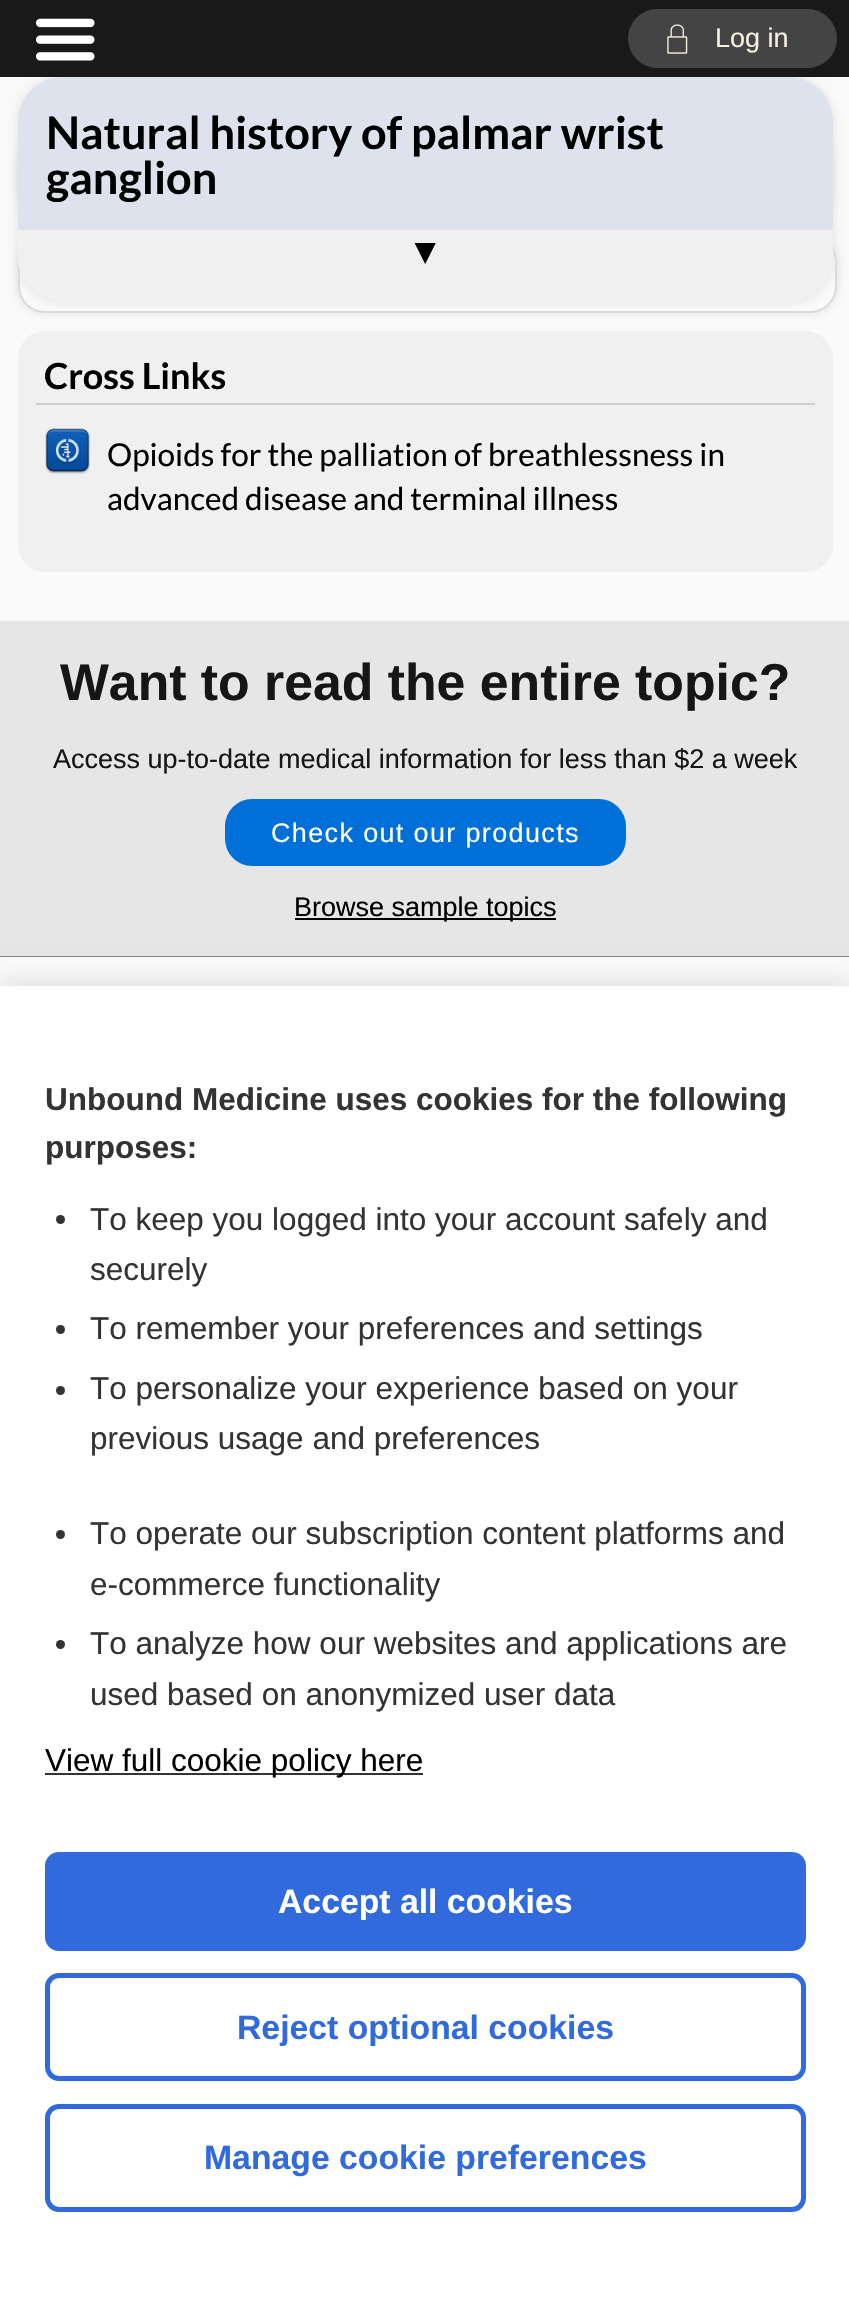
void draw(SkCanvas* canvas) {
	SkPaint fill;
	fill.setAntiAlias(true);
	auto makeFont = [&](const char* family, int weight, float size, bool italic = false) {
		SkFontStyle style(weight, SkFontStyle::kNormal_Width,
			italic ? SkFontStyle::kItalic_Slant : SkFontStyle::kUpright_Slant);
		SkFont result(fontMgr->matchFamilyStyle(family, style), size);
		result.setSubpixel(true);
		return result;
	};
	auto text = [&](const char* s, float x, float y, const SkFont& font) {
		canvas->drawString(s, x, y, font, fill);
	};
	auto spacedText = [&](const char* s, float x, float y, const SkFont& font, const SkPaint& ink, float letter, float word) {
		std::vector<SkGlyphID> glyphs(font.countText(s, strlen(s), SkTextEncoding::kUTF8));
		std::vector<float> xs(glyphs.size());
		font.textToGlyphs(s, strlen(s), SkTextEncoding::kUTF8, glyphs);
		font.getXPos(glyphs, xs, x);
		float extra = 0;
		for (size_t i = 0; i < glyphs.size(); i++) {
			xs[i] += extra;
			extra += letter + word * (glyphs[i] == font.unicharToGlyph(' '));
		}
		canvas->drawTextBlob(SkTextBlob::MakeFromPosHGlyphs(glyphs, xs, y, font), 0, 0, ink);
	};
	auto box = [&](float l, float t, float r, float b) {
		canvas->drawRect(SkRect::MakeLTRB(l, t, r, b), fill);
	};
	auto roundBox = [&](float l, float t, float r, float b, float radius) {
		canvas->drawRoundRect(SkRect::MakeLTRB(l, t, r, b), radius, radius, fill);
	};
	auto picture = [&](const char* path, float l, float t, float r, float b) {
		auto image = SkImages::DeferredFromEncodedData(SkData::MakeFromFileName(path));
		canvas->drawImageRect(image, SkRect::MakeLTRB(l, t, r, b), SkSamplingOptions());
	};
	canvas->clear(0xFFFAFAFA);
	fill.setColor(0xFFDDDDDD);
	fill.setMaskFilter(SkMaskFilter::MakeBlur(kNormal_SkBlurStyle, 4.5f));
	canvas->drawRoundRect(SkRect::MakeLTRB(18, 236, 837, 313), 27, 27, fill);
	fill.setMaskFilter(nullptr);
	fill.setColor(0xFFFAFAFA);
	canvas->drawRoundRect(SkRect::MakeLTRB(19, 237, 836, 312), 26, 26, fill);
	fill.setStyle(SkPaint::kStroke_Style);
	fill.setStrokeWidth(2);
	fill.setColor(0xFFD9DBE0);
	canvas->drawRoundRect(SkRect::MakeLTRB(19, 237, 836, 312), 26, 26, fill);
	fill.setStyle(SkPaint::kFill_Style);
	fill.setColor(0xFFE0E0E0);
	fill.setMaskFilter(SkMaskFilter::MakeBlur(kNormal_SkBlurStyle, 5.5f));
	canvas->drawRoundRect(SkRect::MakeLTRB(18, 77, 833, 302), 45, 45, fill);
	fill.setMaskFilter(nullptr);
	fill.setColor(0xFF191919);
	box(0, 0, 849, 77);
	picture("image0.png", 36, 18, 95, 61);
	fill.setColor(0xFF444444);
	roundBox(628, 9, 837, 68, 29.5f);
	picture("image1.png", 667, 24, 688, 54);
	fill.setColor(0xFFDDDDDD);
	fill.setMaskFilter(SkMaskFilter::MakeBlur(kNormal_SkBlurStyle, 4.5f));
	canvas->drawRoundRect(SkRect::MakeLTRB(18, 137, 833, 218), 27, 27, fill);
	fill.setMaskFilter(nullptr);
	fill.setColor(0xFFF0F0F0);
	roundBox(18, 77, 833, 302, 45);
	fill.setColor(0xFFDEE2ED);
	canvas->drawPath(SkPathBuilder().moveTo(63, 77).lineTo(788, 77).cubicTo(813, 77, 833, 97, 833, 122).lineTo(833, 230).lineTo(18, 230).lineTo(18, 122).cubicTo(18, 97, 38, 77, 63, 77).close().detach(), fill);
	fill.setColor(0xFFF0F0F0);
	roundBox(18, 331, 833, 572, 27);
	fill.setColor(0xFFCCCFD3);
	box(36, 403, 815, 405);
	picture("image2.png", 45, 428, 90, 474);
	fill.setColor(0xFFE6E6E6);
	box(0, 621, 849, 956);
	fill.setColor(0xFF006FD8);
	roundBox(225, 799, 626, 866, 27);
	fill.setColor(0xFF000000);
	box(295, 918, 556, 920);
	fill.setColor(0xFF7F868C);
	box(0, 956, 849, 957);
	fill.setColor(0x1A000000);
	fill.setMaskFilter(SkMaskFilter::MakeBlur(kNormal_SkBlurStyle, 11));
	canvas->drawRect(SkRect::MakeLTRB(0, 981, 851, 2297), fill);
	fill.setMaskFilter(nullptr);
	fill.setColor(0xFFFFFFFF);
	box(0, 986, 849, 2301);
	fill.setColor(0xFF333333);
	canvas->drawCircle(60.5f, 1219.5f, 4.5f, fill);
	canvas->drawCircle(60.5f, 1329.5f, 4.5f, fill);
	canvas->drawCircle(60.5f, 1390.5f, 4.5f, fill);
	canvas->drawCircle(60.5f, 1534.5f, 4.5f, fill);
	canvas->drawCircle(60.5f, 1644.5f, 4.5f, fill);
	box(45, 1773, 423, 1775);
	fill.setColor(0xFF306ADC);
	roundBox(45, 1852, 806, 1951, 14);
	fill.setStyle(SkPaint::kStroke_Style);
	fill.setStrokeWidth(5);
	canvas->drawRoundRect(SkRect::MakeLTRB(47.5f, 1975.5f, 803.5f, 2078.5f), 11.5f, 11.5f, fill);
	canvas->drawRoundRect(SkRect::MakeLTRB(47.5f, 2106.5f, 803.5f, 2209.5f), 11.5f, 11.5f, fill);
	auto font1 = makeFont("Liberation Sans", 400, 27);
	fill.setStyle(SkPaint::kFill_Style);
	fill.setColor(0xFFF5EFE0);
	text("Log in", 715, 47, font1);
	auto font2 = makeFont("Lato", 700, 45);
	fill.setColor(0xFF000000);
	text("Natural history of palmar wrist", 46, 149, font2);
	text("ganglion", 46, 194, font2);
	auto font3 = makeFont("Liberation Serif", 400, 36);
	canvas->save();
	canvas->rotate(180, 443, 243);
	text("▲", 443, 243, font3);
	canvas->restore();
	auto font4 = makeFont("Lato", 700, 36);
	text("Cross Links", 44, 389, font4);
	auto font5 = makeFont("Lato", 400, 31.5f);
	text("Opioids for the palliation of breathlessness in", 107, 466, font5);
	text("advanced disease and terminal illness", 107, 510, font5);
	auto font6 = makeFont("Liberation Sans", 700, 51.75f);
	fill.setColor(0xFF161616);
	text("Want to read the entire topic?", 60, 700, font6);
	text("Access up-to-date medical information for less than $2 a week", 53, 768, font1);
	fill.setColor(0xFFFFFFFF);
	spacedText("Check out our products", 271, 842, font1, fill, 1.35f, 0);
	fill.setColor(0xFF000000);
	text("Browse sample topics", 294, 916, font1);
	auto font7 = makeFont("Liberation Sans", 700, 31.5f);
	fill.setColor(0xFF333333);
	text("Unbound Medicine uses cookies for the following", 45, 1110, font7);
	text("purposes:", 45, 1158, font7);
	auto font8 = makeFont("Liberation Sans", 400, 31.5f);
	text("To keep you logged into your account safely and", 90, 1230, font8);
	text("securely", 90, 1280, font8);
	text("To remember your preferences and settings", 90, 1339, font8);
	text("To personalize your experience based on your", 90, 1399, font8);
	text("previous usage and preferences", 90, 1449, font8);
	text("To operate our subscription content platforms and", 90, 1544, font8);
	text("e-commerce functionality", 90, 1595, font8);
	text("To analyze how our websites and applications are", 90, 1654, font8);
	text("used based on anonymized user data", 90, 1705, font8);
	fill.setColor(0xFF000000);
	text("View full cookie policy here", 45, 1771, font8);
	auto font9 = makeFont("Liberation Sans", 700, 33.75f);
	fill.setColor(0xFFFFFFFF);
	text("Accept all cookies", 278, 1913, font9);
	fill.setColor(0xFF306ADC);
	text("Reject optional cookies", 237, 2039, font9);
	text("Manage cookie preferences", 204, 2169, font9);
}
